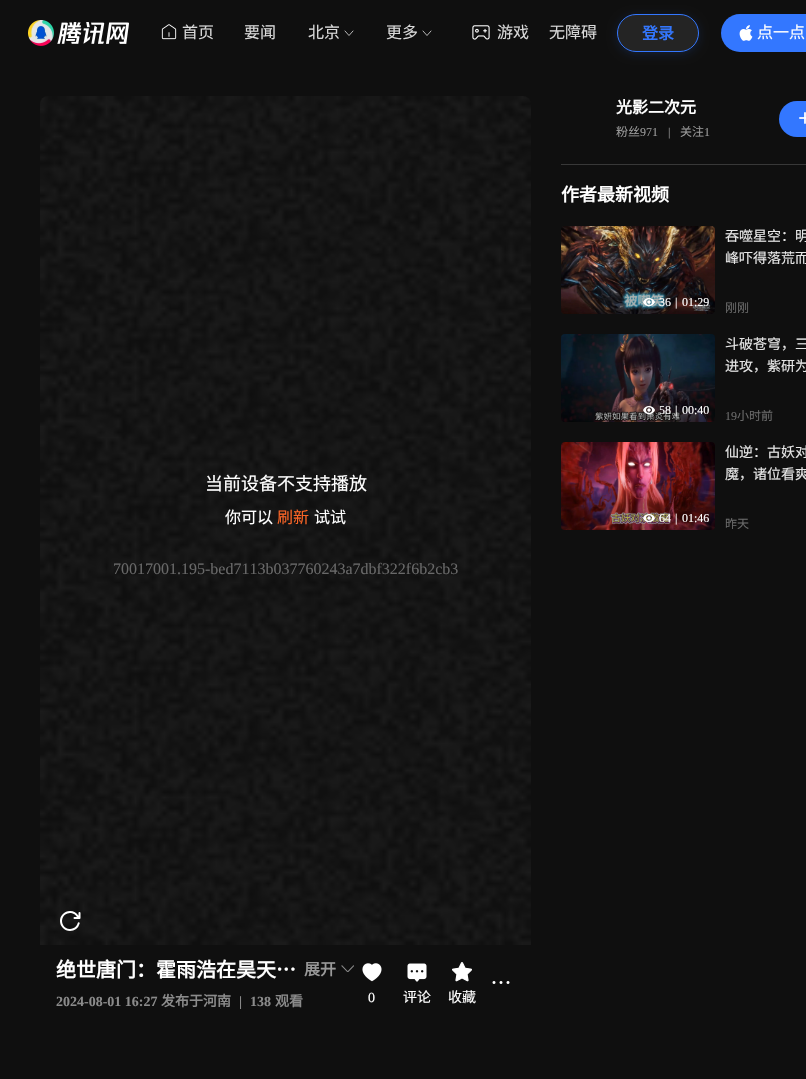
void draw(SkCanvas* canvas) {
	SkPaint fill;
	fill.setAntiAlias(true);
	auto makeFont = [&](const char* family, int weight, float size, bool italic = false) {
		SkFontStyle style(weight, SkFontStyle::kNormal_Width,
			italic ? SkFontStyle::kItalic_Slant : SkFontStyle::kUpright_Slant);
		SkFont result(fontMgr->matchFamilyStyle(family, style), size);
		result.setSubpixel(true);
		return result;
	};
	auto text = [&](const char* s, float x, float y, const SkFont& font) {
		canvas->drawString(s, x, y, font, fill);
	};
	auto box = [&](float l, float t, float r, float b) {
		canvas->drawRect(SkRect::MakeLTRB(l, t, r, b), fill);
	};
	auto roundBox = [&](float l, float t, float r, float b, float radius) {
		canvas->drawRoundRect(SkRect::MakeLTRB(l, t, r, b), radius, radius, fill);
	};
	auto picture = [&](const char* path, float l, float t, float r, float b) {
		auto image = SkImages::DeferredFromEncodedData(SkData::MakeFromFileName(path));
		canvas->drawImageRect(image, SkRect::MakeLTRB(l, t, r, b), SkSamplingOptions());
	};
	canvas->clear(0xFF0F0F0F);
	picture("image0.png", 28, 20, 129, 46);
	picture("image1.png", 161, 24, 177, 40);
	fill.setStyle(SkPaint::kStroke_Style);
	fill.setStrokeWidth(0.7f);
	fill.setStrokeCap(SkPaint::kRound_Cap);
	fill.setStrokeJoin(SkPaint::kRound_Join);
	fill.setColor(0xFFFFFFFF);
	canvas->drawPath(SkPathBuilder().moveTo(353, 31).lineTo(349, 35.5f).lineTo(345, 31).detach(), fill);
	canvas->drawPath(SkPathBuilder().moveTo(431, 31).lineTo(427, 35.5f).lineTo(423, 31).detach(), fill);
	picture("image2.png", 472, 25, 490, 40);
	canvas->save();
	canvas->clipPath(SkPathBuilder(SkPathFillType::kEvenOdd).moveTo(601, 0).lineTo(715, 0).lineTo(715, 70).lineTo(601, 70).close().moveTo(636, 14).lineTo(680, 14).cubicTo(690.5f, 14, 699, 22.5f, 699, 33).cubicTo(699, 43.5f, 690.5f, 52, 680, 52).lineTo(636, 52).cubicTo(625.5f, 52, 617, 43.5f, 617, 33).cubicTo(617, 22.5f, 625.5f, 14, 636, 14).close().detach(), true);
	fill.setStyle(SkPaint::kFill_Style);
	fill.setColor(0x293377FF);
	fill.setMaskFilter(SkMaskFilter::MakeBlur(kNormal_SkBlurStyle, 5));
	canvas->drawRoundRect(SkRect::MakeLTRB(617, 16, 699, 54), 19, 19, fill);
	fill.setMaskFilter(nullptr);
	canvas->restore();
	fill.setColor(0x1AD9D9D9);
	canvas->drawRoundRect(SkRect::MakeLTRB(617.5f, 14.5f, 698.5f, 51.5f), 18.5f, 18.5f, fill);
	fill.setStyle(SkPaint::kStroke_Style);
	fill.setStrokeWidth(1);
	fill.setStrokeCap(SkPaint::kButt_Cap);
	fill.setStrokeJoin(SkPaint::kMiter_Join);
	fill.setColor(0xFF3377FF);
	canvas->drawRoundRect(SkRect::MakeLTRB(617.5f, 14.5f, 698.5f, 51.5f), 18.5f, 18.5f, fill);
	fill.setStyle(SkPaint::kFill_Style);
	roundBox(721, 14, 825, 52, 19);
	picture("image3.png", 739, 25, 753, 41);
	roundBox(779, 101, 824, 137, 18);
	picture("image4.png", 799, 112, 806, 124);
	fill.setColor(0xFF383838);
	box(561, 164, 806, 165);
	picture("image5.png", 561, 226, 715, 314);
	{
		const SkColor colors[] = {0x4D000000, 0x00000000};
		const float stops[] = {0.3f, 0.6f};
		const SkPoint ends[] = {{638, 314}, {638, 226}};
		fill.setShader(SkGradientShader::MakeLinear(ends, colors, stops, 2, SkTileMode::kClamp));
		fill.setAlpha(255);
	}
	roundBox(561, 226, 715, 314, 4);
	picture("image6.png", 643, 298, 655, 307);
	picture("image7.png", 561, 334, 715, 422);
	{
		const SkColor colors[] = {0x4D000000, 0x00000000};
		const float stops[] = {0.3f, 0.6f};
		const SkPoint ends[] = {{638, 422}, {638, 334}};
		fill.setShader(SkGradientShader::MakeLinear(ends, colors, stops, 2, SkTileMode::kClamp));
		fill.setAlpha(255);
	}
	roundBox(561, 334, 715, 422, 4);
	picture("image8.png", 643, 406, 655, 415);
	picture("image9.png", 561, 442, 715, 530);
	{
		const SkColor colors[] = {0x4D000000, 0x00000000};
		const float stops[] = {0.3f, 0.6f};
		const SkPoint ends[] = {{638, 530}, {638, 442}};
		fill.setShader(SkGradientShader::MakeLinear(ends, colors, stops, 2, SkTileMode::kClamp));
		fill.setAlpha(255);
	}
	roundBox(561, 442, 715, 530, 4);
	picture("image10.png", 643, 514, 655, 523);
	picture("image11.png", 40, 96, 531, 945);
	picture("image12.png", 341, 965, 354, 972);
	picture("image13.png", 492, 981, 510, 984);
	picture("image14.png", 362, 963, 382, 982);
	picture("image15.png", 407, 963, 427, 982);
	picture("image16.png", 452, 962, 472, 982);
	auto font1 = makeFont("Noto Sans CJK SC", 400, 16);
	fill.setShader(nullptr);
	fill.setColor(0xFFD9D9D9);
	text("首页", 182, 38, font1);
	text("要闻", 244, 38, font1);
	text("北京", 308, 38, font1);
	text("更多", 386, 38, font1);
	text("游戏", 497, 38, font1);
	text("无障碍", 549, 38, font1);
	auto font2 = makeFont("Noto Sans CJK SC", 700, 16);
	fill.setColor(0xFF3377FF);
	text("登录", 642, 39, font2);
	fill.setColor(0xFFFFFFFF);
	text("点一点", 757, 38, font1);
	text("光影二次元", 616, 113, font2);
	auto font3 = makeFont("Noto Sans CJK SC", 400, 12);
	fill.setColor(0xFF999999);
	text("粉丝", 616, 136, font3);
	auto font4 = makeFont("Liberation Serif", 400, 12);
	text("971", 640, 136, font4);
	text("|", 668, 136, font4);
	text("关注", 680, 136, font3);
	text("1", 704, 136, font4);
	auto font5 = makeFont("Noto Sans CJK SC", 700, 18);
	fill.setColor(0xFFFFFFFF);
	text("作者最新视频", 561, 201, font5);
	text("36", 659, 306, font4);
	text("|", 675, 306, font4);
	text("01:29", 682, 306, font4);
	auto font6 = makeFont("Noto Sans CJK SC", 400, 14);
	fill.setColor(0xFFE6E6E6);
	text("吞噬星空：明", 725, 241, font6);
	text("峰吓得落荒而", 725, 263, font6);
	fill.setColor(0xFF696969);
	text("刚刚", 725, 312, font3);
	fill.setColor(0xFFFFFFFF);
	text("58", 659, 414, font4);
	text("|", 675, 414, font4);
	text("00:40", 682, 414, font4);
	fill.setColor(0xFFE6E6E6);
	text("斗破苍穹，三", 725, 349, font6);
	text("进攻，紫研为", 725, 371, font6);
	fill.setColor(0xFF696969);
	text("19", 725, 420, font4);
	text("小时前", 737, 420, font3);
	fill.setColor(0xFFFFFFFF);
	text("64", 659, 522, font4);
	text("|", 675, 522, font4);
	text("01:46", 682, 522, font4);
	fill.setColor(0xFFE6E6E6);
	text("仙逆：古妖对", 725, 457, font6);
	text("魔，诸位看爽", 725, 479, font6);
	fill.setColor(0xFF696969);
	text("昨天", 725, 528, font3);
	auto font7 = makeFont("Noto Sans CJK SC", 400, 18);
	fill.setColor(0xFFFFFFFF);
	text("当前设备不支持播放", 205, 490, font7);
	text("你可以", 225, 523, font1);
	fill.setColor(0xFFFC6526);
	text("刷新", 277, 523, font1);
	fill.setColor(0xFFFFFFFF);
	text("试试", 314, 523, font1);
	auto font8 = makeFont("Liberation Serif", 400, 16);
	fill.setColor(0xFF696969);
	text("70017001.195-bed7113b037760243a7dbf322f6b2cb3", 113, 574, font8);
	auto font9 = makeFont("Noto Sans CJK SC", 700, 20);
	fill.setColor(0xFFFFFFFF);
	text("绝世唐门：霍雨浩在昊天…", 56, 977, font9);
	fill.setColor(0xFF999999);
	text("展开", 304, 975, font2);
	auto font10 = makeFont("Liberation Serif", 700, 14);
	fill.setColor(0xFF8B8B8B);
	text("2024-08-01 16:27", 56, 1006, font10);
	auto font11 = makeFont("Noto Sans CJK SC", 700, 14);
	text("发布于河南", 161, 1006, font11);
	text("|", 239, 1006, font10);
	text("138", 250, 1006, font10);
	text("观看", 275, 1006, font11);
	auto font12 = makeFont("Liberation Serif", 400, 14);
	fill.setColor(0xFFFFFFFF);
	text("0", 368, 1002, font12);
	text("评论", 403, 1002, font6);
	text("收藏", 448, 1002, font6);
}
